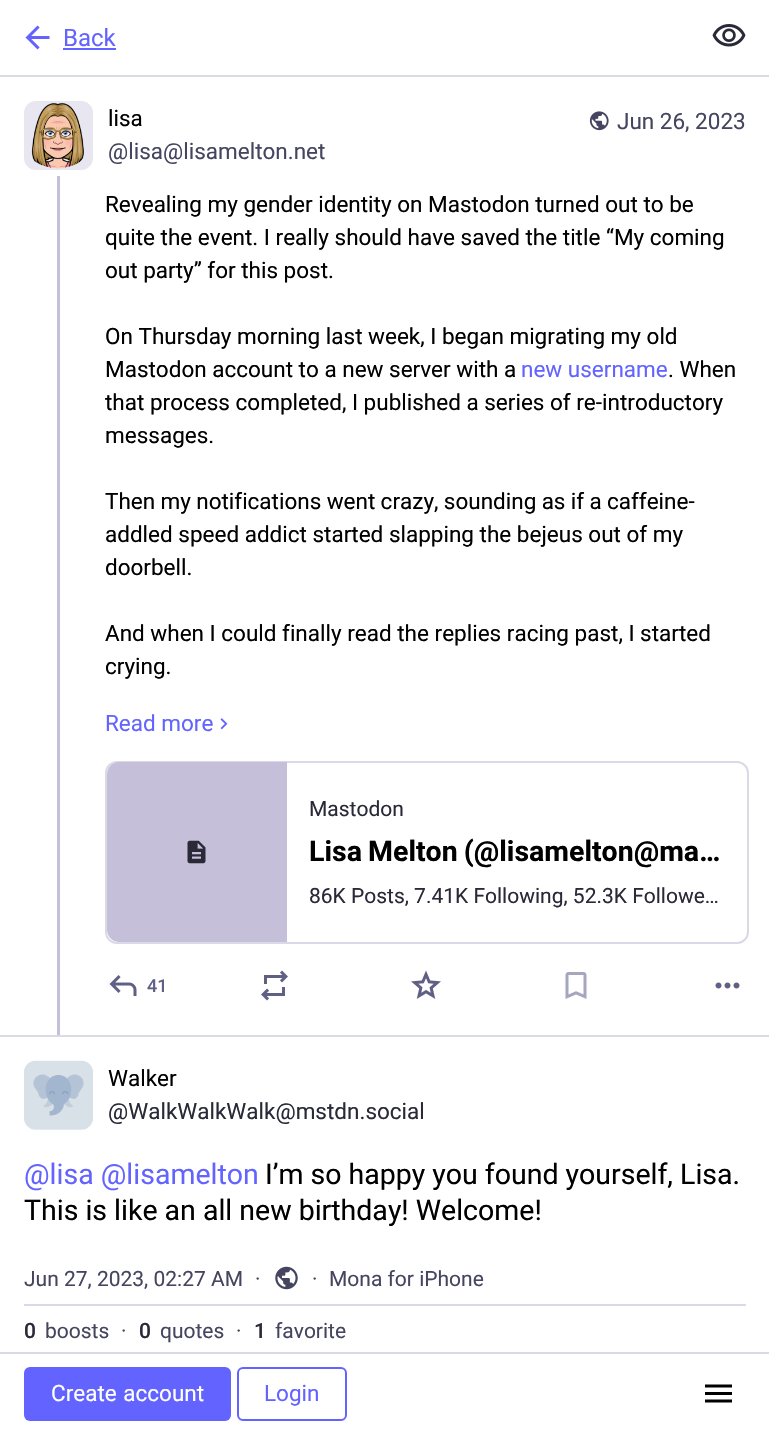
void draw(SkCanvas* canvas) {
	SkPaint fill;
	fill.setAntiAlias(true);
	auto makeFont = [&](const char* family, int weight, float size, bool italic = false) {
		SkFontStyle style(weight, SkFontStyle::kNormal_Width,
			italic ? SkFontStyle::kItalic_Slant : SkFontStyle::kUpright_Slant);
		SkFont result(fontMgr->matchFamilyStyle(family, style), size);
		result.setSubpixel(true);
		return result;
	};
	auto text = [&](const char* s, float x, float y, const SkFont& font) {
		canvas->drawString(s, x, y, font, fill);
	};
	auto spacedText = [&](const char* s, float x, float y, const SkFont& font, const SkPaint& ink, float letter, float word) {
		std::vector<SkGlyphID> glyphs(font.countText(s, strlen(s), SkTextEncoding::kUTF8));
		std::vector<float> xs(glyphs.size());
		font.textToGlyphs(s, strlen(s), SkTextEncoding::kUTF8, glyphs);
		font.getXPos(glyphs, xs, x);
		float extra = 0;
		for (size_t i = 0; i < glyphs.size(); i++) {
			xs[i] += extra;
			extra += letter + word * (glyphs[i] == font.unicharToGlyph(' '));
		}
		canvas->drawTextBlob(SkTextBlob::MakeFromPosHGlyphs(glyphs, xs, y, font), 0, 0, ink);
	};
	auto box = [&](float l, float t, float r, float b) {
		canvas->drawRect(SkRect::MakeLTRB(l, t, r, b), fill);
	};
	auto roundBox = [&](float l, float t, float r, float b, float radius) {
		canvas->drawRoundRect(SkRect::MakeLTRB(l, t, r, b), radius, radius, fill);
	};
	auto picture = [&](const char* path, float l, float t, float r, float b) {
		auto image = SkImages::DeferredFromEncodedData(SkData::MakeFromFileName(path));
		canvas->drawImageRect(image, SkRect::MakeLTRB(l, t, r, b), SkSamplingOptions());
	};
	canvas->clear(0xFFFFFFFF);
	fill.setColor(0xFFD9D9E8);
	box(0, 75, 769, 77);
	picture("image0.png", 25, 25, 50, 50);
	fill.setColor(0xFF6364FF);
	box(63, 48, 116, 50);
	picture("image1.png", 712, 24, 746, 47);
	fill.setColor(0xFFE8E6F0);
	roundBox(24, 101, 93, 170, 12);
	picture("image2.png", 31, 103, 84, 169);
	picture("image3.png", 589, 111, 609, 131);
	fill.setColor(0xFFC6BFD9);
	box(57, 176, 60, 1035);
	picture("image4.png", 220, 718, 228, 730);
	fill.setStyle(SkPaint::kStroke_Style);
	fill.setStrokeWidth(2);
	fill.setColor(0xFFD9D9E8);
	canvas->drawRoundRect(SkRect::MakeLTRB(106, 762, 748, 943), 11, 11, fill);
	canvas->save();
	canvas->clipPath(SkPathBuilder().moveTo(118, 762).lineTo(736, 762).cubicTo(742, 762, 747, 767, 747, 773).lineTo(747, 931).cubicTo(747, 937, 742, 942, 736, 942).lineTo(118, 942).cubicTo(112, 942, 107, 937, 107, 931).lineTo(107, 773).cubicTo(107, 767, 112, 762, 118, 762).close().detach(), true);
	fill.setStyle(SkPaint::kFill_Style);
	fill.setColor(0xFFC6BFD9);
	canvas->drawPath(SkPathBuilder().moveTo(119, 762).lineTo(287, 762).lineTo(287, 942).lineTo(119, 942).cubicTo(112.5f, 942, 107, 936.5f, 107, 930).lineTo(107, 774).cubicTo(107, 767.5f, 112.5f, 762, 119, 762).close().detach(), fill);
	canvas->restore();
	picture("image5.png", 187, 840, 206, 864);
	picture("image6.png", 109, 975, 137, 996);
	picture("image7.png", 261, 970, 288, 1001);
	picture("image8.png", 411, 970, 441, 999);
	picture("image9.png", 565, 972, 587, 999);
	picture("image10.png", 715, 982, 740, 989);
	fill.setColor(0xFFD9D9E8);
	box(0, 1035, 769, 1037);
	fill.setColor(0xFFE8E6F0);
	roundBox(24, 1061, 93, 1130, 12);
	picture("image11.png", 24, 1060, 93, 1129);
	fill.setColor(0xFFD9D9E8);
	box(24, 1304, 746, 1306);
	picture("image12.png", 275, 1266, 298, 1290);
	box(0, 1352, 769, 1354);
	fill.setColor(0xFF6364FF);
	roundBox(24, 1367, 231, 1421, 6);
	fill.setStyle(SkPaint::kStroke_Style);
	canvas->drawRoundRect(SkRect::MakeLTRB(238, 1368, 346, 1420), 5, 5, fill);
	picture("image13.png", 705, 1384, 732, 1403);
	auto font1 = makeFont("Roboto", 400, 24);
	fill.setStyle(SkPaint::kFill_Style);
	text("Back", 63, 46, font1);
	auto font2 = makeFont("Roboto", 400, 22.5f);
	fill.setColor(0xFF000000);
	text("lisa", 108, 126, font2);
	fill.setColor(0xFF45455F);
	text("@lisa@lisamelton.net", 108, 159, font2);
	text("Jun 26, 2023", 617, 129, font2);
	fill.setColor(0xFF000000);
	text("Revealing my gender identity on Mastodon turned out to be", 105, 212, font2);
	text("quite the event. I really should have saved the title “My coming", 105, 245, font2);
	text("out party” for this post.", 105, 278, font2);
	text("On Thursday morning last week, I began migrating my old", 105, 344, font2);
	text("Mastodon account to a new server with a", 105, 377, font2);
	fill.setColor(0xFF6364FF);
	text("new username", 521, 377, font2);
	fill.setColor(0xFF000000);
	text(". When", 668, 377, font2);
	text("that process completed, I published a series of re-introductory", 105, 410, font2);
	text("messages.", 105, 443, font2);
	spacedText("Then my notifications went crazy, sounding as if a caffeine-", 105, 509, font2, fill, 0, -0.25f);
	text("addled speed addict started slapping the bejeus out of my", 105, 542, font2);
	text("doorbell.", 105, 575, font2);
	text("And when I could finally read the replies racing past, I started", 105, 641, font2);
	text("crying.", 105, 674, font2);
	fill.setColor(0xFF6364FF);
	text("Read more", 105, 731, font2);
	auto font3 = makeFont("Roboto", 400, 21);
	fill.setColor(0xFF292938);
	text("Mastodon", 309, 816, font3);
	auto font4 = makeFont("Roboto", 700, 28.5f);
	fill.setColor(0xFF000000);
	spacedText("Lisa Melton (@lisamelton@ma…", 309, 861, font4, fill, 0, -1);
	fill.setColor(0xFF292938);
	text("86K Posts, 7.41K Following, 52.3K Followe…", 309, 903, font3);
	auto font5 = makeFont("Roboto", 500, 18);
	fill.setColor(0xFF606085);
	text("41", 147, 992, font5);
	fill.setColor(0xFF000000);
	text("Walker", 108, 1086, font2);
	canvas->save();
	canvas->clipRect(SkRect::MakeLTRB(108, 1095, 423, 1128));
	fill.setColor(0xFF292938);
	text("@WalkWalkWalk@mstdn.social", 108, 1119, font2);
	canvas->restore();
	auto font6 = makeFont("Roboto", 400, 28.5f);
	fill.setColor(0xFF6364FF);
	text("@lisa @lisamelton", 24, 1184, font6);
	fill.setColor(0xFF000000);
	text("I’m so happy you found yourself, Lisa.", 265, 1184, font6);
	text("This is like an all new birthday! Welcome!", 24, 1220, font6);
	fill.setColor(0xFF45455F);
	text("Jun 27, 2023, 02:27 AM", 24, 1286, font3);
	text("·", 255, 1286, font3);
	text("·", 312, 1286, font3);
	text("Mona for iPhone", 329, 1286, font3);
	auto font7 = makeFont("Roboto", 500, 21);
	fill.setColor(0xFF292938);
	text("0", 24, 1338, font7);
	fill.setColor(0xFF45455F);
	text("boosts", 45, 1338, font3);
	text("·", 121, 1338, font3);
	canvas->save();
	canvas->clipRect(SkRect::MakeLTRB(140, 1317, 150, 1344));
	fill.setColor(0xFF292938);
	text("0", 139, 1338, font7);
	canvas->restore();
	fill.setColor(0xFF45455F);
	text("quotes", 160, 1338, font3);
	text("·", 236, 1338, font3);
	fill.setColor(0xFF292938);
	text("1", 254, 1338, font7);
	fill.setColor(0xFF45455F);
	text("favorite", 275, 1338, font3);
	fill.setColor(0xFFFFFFFF);
	spacedText("Create account", 51, 1401, font2, fill, 0, 1);
	fill.setColor(0xFF6364FF);
	text("Login", 264, 1401, font2);
}
